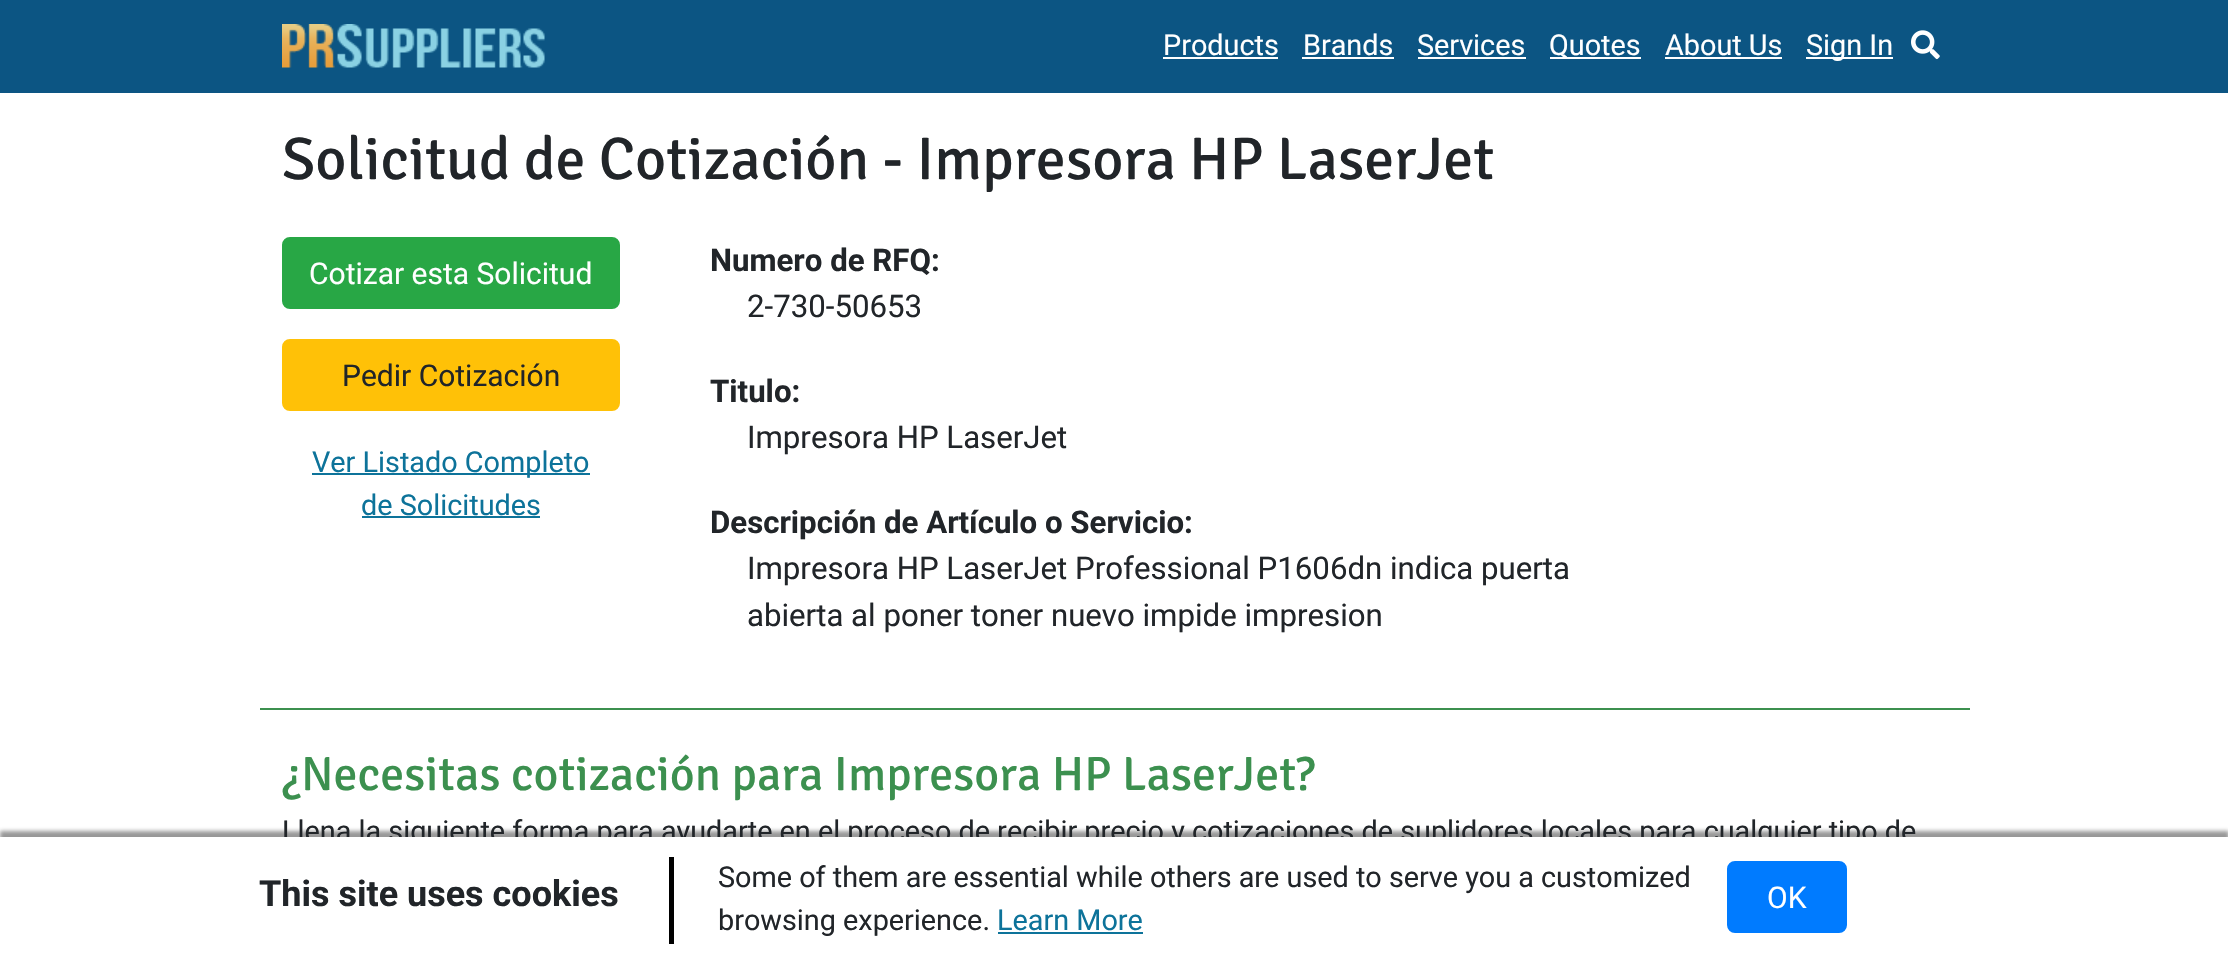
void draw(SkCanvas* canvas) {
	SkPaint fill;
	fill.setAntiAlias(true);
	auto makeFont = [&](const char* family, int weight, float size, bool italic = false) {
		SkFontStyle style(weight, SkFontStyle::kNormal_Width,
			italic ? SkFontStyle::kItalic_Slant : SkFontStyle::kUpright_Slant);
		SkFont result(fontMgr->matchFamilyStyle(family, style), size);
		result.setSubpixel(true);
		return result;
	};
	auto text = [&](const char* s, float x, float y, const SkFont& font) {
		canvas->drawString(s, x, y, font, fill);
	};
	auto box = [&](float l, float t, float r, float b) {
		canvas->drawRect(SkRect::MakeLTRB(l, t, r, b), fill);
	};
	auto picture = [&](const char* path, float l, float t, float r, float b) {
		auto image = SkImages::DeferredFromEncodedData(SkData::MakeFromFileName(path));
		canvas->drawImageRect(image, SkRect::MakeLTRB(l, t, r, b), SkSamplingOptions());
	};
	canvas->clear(0xFF0C5583);
	picture("image0.png", 282, 24, 545, 68);
	fill.setColor(0xFFFFFFFF);
	box(1163, 57, 1278, 59);
	box(1302, 57, 1394, 59);
	box(1418, 57, 1526, 59);
	box(1550, 57, 1641, 59);
	box(1665, 57, 1782, 59);
	box(1806, 57, 1893, 59);
	picture("image1.png", 1911, 30, 1940, 60);
	box(0, 93, 2228, 837);
	fill.setColor(0xFF28A745);
	canvas->drawRoundRect(SkRect::MakeLTRB(283, 238, 619, 308), 7, 7, fill);
	fill.setStyle(SkPaint::kStroke_Style);
	fill.setStrokeWidth(2);
	canvas->drawRoundRect(SkRect::MakeLTRB(283, 238, 619, 308), 7, 7, fill);
	fill.setStyle(SkPaint::kFill_Style);
	fill.setColor(0xFFFFC107);
	canvas->drawRoundRect(SkRect::MakeLTRB(283, 340, 619, 410), 7, 7, fill);
	fill.setStyle(SkPaint::kStroke_Style);
	canvas->drawRoundRect(SkRect::MakeLTRB(283, 340, 619, 410), 7, 7, fill);
	fill.setStyle(SkPaint::kFill_Style);
	fill.setColor(0xFF0D739A);
	box(312, 473, 590, 475);
	box(362, 516, 540, 518);
	fill.setColor(0xFF3C904F);
	box(260, 708, 1970, 710);
	fill.setColor(0x80323232);
	fill.setMaskFilter(SkMaskFilter::MakeBlur(kNormal_SkBlurStyle, 2));
	canvas->drawRect(SkRect::MakeLTRB(0, 831, 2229, 954), fill);
	fill.setMaskFilter(nullptr);
	auto font1 = makeFont("Roboto", 400, 28.8f);
	fill.setColor(0xFFFFFFFF);
	text("Products", 1163, 55, font1);
	text("Brands", 1303, 55, font1);
	text("Services", 1417, 55, font1);
	text("Quotes", 1549, 55, font1);
	text("About Us", 1665, 55, font1);
	text("Sign In", 1806, 55, font1);
	auto font2 = makeFont("Signika", 300, 60);
	fill.setColor(0xFF212529);
	text("Solicitud de Cotización - Impresora HP LaserJet", 282, 179, font2);
	auto font3 = makeFont("Roboto", 400, 30);
	fill.setColor(0xFFFFFFFF);
	text("Cotizar esta Solicitud", 309, 284, font3);
	fill.setColor(0xFF212529);
	text("Pedir Cotización", 342, 386, font3);
	fill.setColor(0xFF0D739A);
	text("Ver Listado Completo", 312, 472, font1);
	text("de Solicitudes", 361, 515, font1);
	auto font4 = makeFont("Roboto", 700, 31.2f);
	fill.setColor(0xFF212529);
	text("Numero de RFQ:", 710, 271, font4);
	auto font5 = makeFont("Roboto", 400, 31.2f);
	text("2-730-50653", 747, 317, font5);
	text("Titulo:", 710, 402, font4);
	text("Impresora HP LaserJet", 747, 448, font5);
	text("Descripción de Artículo o Servicio:", 710, 533, font4);
	text("Impresora HP LaserJet Professional P1606dn indica puerta", 747, 579, font5);
	text("abierta al poner toner nuevo impide impresion", 747, 626, font5);
	auto font6 = makeFont("Signika", 300, 48);
	fill.setColor(0xFF3C904F);
	text("¿Necesitas cotización para Impresora HP LaserJet?", 282, 790, font6);
	fill.setColor(0xFF212529);
	text("Llena la siguiente forma para ayudarte en el proceso de recibir precio y cotizaciones de suplidores locales para cualquier tipo de", 282, 841, font1);
	fill.setColor(0xFFFFFFFF);
	box(0, 837, 2228, 960);
	auto font7 = makeFont("Roboto", 700, 36);
	fill.setColor(0xFF212529);
	text("This site uses cookies", 259, 906, font7);
	fill.setColor(0xFF000000);
	box(669, 857, 674, 944);
	fill.setColor(0xFF212529);
	text("Some of them are essential while others are used to serve you a customized", 718, 887, font1);
	text("browsing experience.", 718, 930, font1);
	fill.setColor(0xFF0D739A);
	text("Learn More", 997, 930, font1);
	box(998, 932, 1143, 934);
	fill.setColor(0xFF007BFF);
	canvas->drawRoundRect(SkRect::MakeLTRB(1728, 862, 1846, 932), 7, 7, fill);
	fill.setStyle(SkPaint::kStroke_Style);
	canvas->drawRoundRect(SkRect::MakeLTRB(1728, 862, 1846, 932), 7, 7, fill);
	fill.setStyle(SkPaint::kFill_Style);
	fill.setColor(0xFFFFFFFF);
	text("OK", 1767, 908, font3);
}
